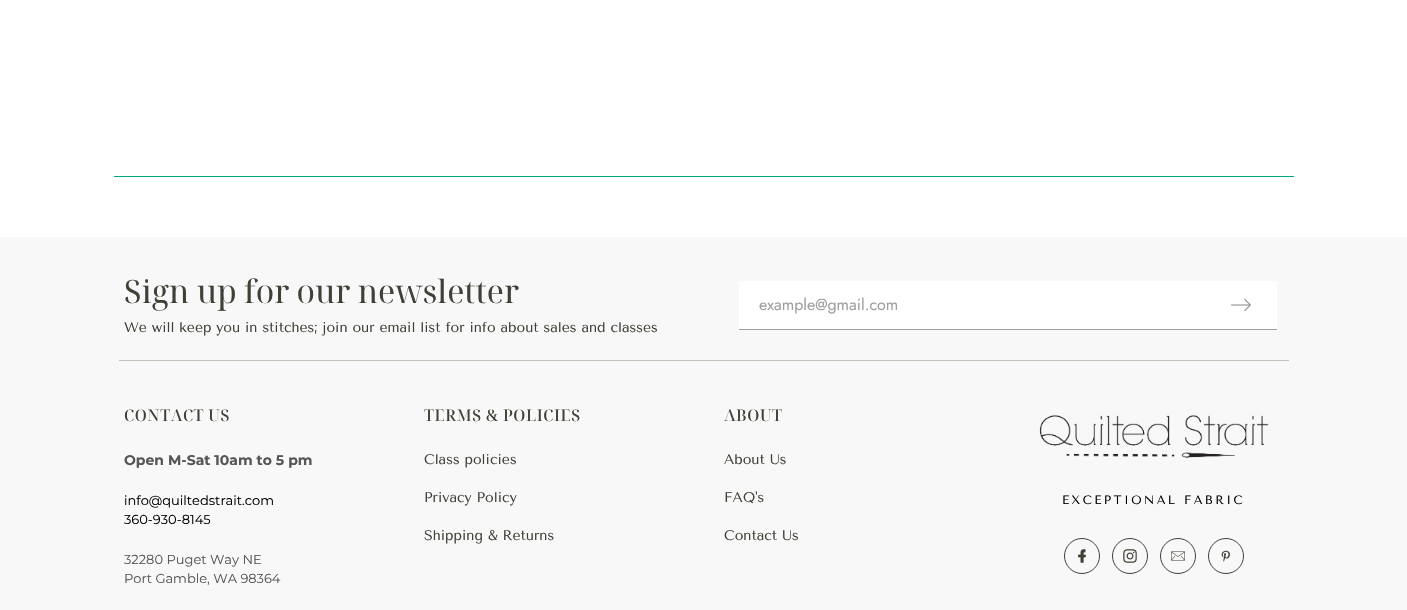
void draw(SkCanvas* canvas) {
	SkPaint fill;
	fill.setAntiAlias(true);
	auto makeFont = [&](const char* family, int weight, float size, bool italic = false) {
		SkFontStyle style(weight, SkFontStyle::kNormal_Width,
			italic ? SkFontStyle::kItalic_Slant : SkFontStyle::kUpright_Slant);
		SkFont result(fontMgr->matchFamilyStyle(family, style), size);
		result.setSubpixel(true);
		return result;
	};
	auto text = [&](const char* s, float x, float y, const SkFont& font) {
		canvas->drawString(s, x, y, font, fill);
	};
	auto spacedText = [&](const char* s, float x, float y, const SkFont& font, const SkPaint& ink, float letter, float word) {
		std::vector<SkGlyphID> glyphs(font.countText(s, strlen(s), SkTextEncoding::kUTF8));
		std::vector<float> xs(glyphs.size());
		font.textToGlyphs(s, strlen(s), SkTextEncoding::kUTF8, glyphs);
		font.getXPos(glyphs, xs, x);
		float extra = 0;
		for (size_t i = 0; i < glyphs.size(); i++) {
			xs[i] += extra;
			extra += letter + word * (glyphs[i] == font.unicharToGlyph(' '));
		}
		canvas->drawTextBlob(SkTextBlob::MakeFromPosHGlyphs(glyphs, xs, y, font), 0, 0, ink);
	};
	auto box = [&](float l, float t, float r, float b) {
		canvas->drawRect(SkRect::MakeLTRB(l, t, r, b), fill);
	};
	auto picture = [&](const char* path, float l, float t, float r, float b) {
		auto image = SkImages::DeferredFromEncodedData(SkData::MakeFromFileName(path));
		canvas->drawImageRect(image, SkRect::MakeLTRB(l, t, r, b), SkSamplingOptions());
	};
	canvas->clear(0xFFFFFFFF);
	fill.setColor(0xFF00AB84);
	box(114, 176, 1294, 177);
	fill.setColor(0xFFF8F8F8);
	box(0, 237, 1407, 610);
	fill.setColor(0xFFFFFFFF);
	box(739, 281, 1277, 329);
	fill.setColor(0xFF9F9F9F);
	box(739, 329, 1277, 330);
	picture("image0.png", 1231, 298, 1251, 312);
	fill.setColor(0xFFC2C3BB);
	box(119, 360, 1289, 361);
	picture("image1.png", 1039, 415, 1269, 458);
	fill.setStyle(SkPaint::kStroke_Style);
	fill.setStrokeWidth(1);
	fill.setColor(0xFF3F4137);
	canvas->drawCircle(1082, 556, 17.5f, fill);
	picture("image2.png", 1078, 549, 1086, 563);
	canvas->drawCircle(1130, 556, 17.5f, fill);
	picture("image3.png", 1123, 549, 1137, 563);
	canvas->drawCircle(1178, 556, 17.5f, fill);
	picture("image4.png", 1171, 551, 1185, 561);
	canvas->drawCircle(1226, 556, 17.5f, fill);
	picture("image5.png", 1221, 550, 1230, 562);
	auto font1 = makeFont("Noto Serif Display", 400, 32);
	fill.setStyle(SkPaint::kFill_Style);
	text("Sign up for our newsletter", 124, 303, font1);
	auto font2 = makeFont("Tenor Sans", 400, 14);
	text("We will keep you in stitches; join our email list for info about sales and classes", 124, 332, font2);
	auto font3 = makeFont("Jost", 400, 16);
	fill.setColor(0xFF9F9F9F);
	text("example@gmail.com", 759, 310, font3);
	auto font4 = makeFont("Noto Serif Display", 500, 16);
	fill.setColor(0xFF3F4137);
	spacedText("CONTACT US", 124, 421, font4, fill, 0.6f, 0);
	auto font5 = makeFont("Montserrat", 700, 14);
	fill.setColor(0xFF565656);
	text("Open M-Sat 10am to 5 pm", 124, 465, font5);
	auto font6 = makeFont("Montserrat", 400, 13);
	fill.setColor(0xFF000000);
	text("info@quiltedstrait.com", 124, 505, font6);
	text("360-930-8145", 124, 524, font6);
	fill.setColor(0xFF565656);
	text("32280 Puget Way NE", 124, 564, font6);
	text("Port Gamble, WA 98364", 124, 583, font6);
	fill.setColor(0xFF3F4137);
	spacedText("TERMS & POLICIES", 424, 421, font4, fill, 0.6f, 0);
	text("Class policies", 424, 464, font2);
	text("Privacy Policy", 424, 502, font2);
	text("Shipping & Returns", 424, 540, font2);
	spacedText("ABOUT", 724, 421, font4, fill, 0.6f, 0);
	text("About Us", 724, 464, font2);
	text("FAQ's", 724, 502, font2);
	text("Contact Us", 724, 540, font2);
	auto font7 = makeFont("Tenor Sans", 400, 12);
	fill.setColor(0xFF000000);
	spacedText("EXCEPTIONAL FABRIC", 1062, 504, font7, fill, 2.4f, 0);
}
